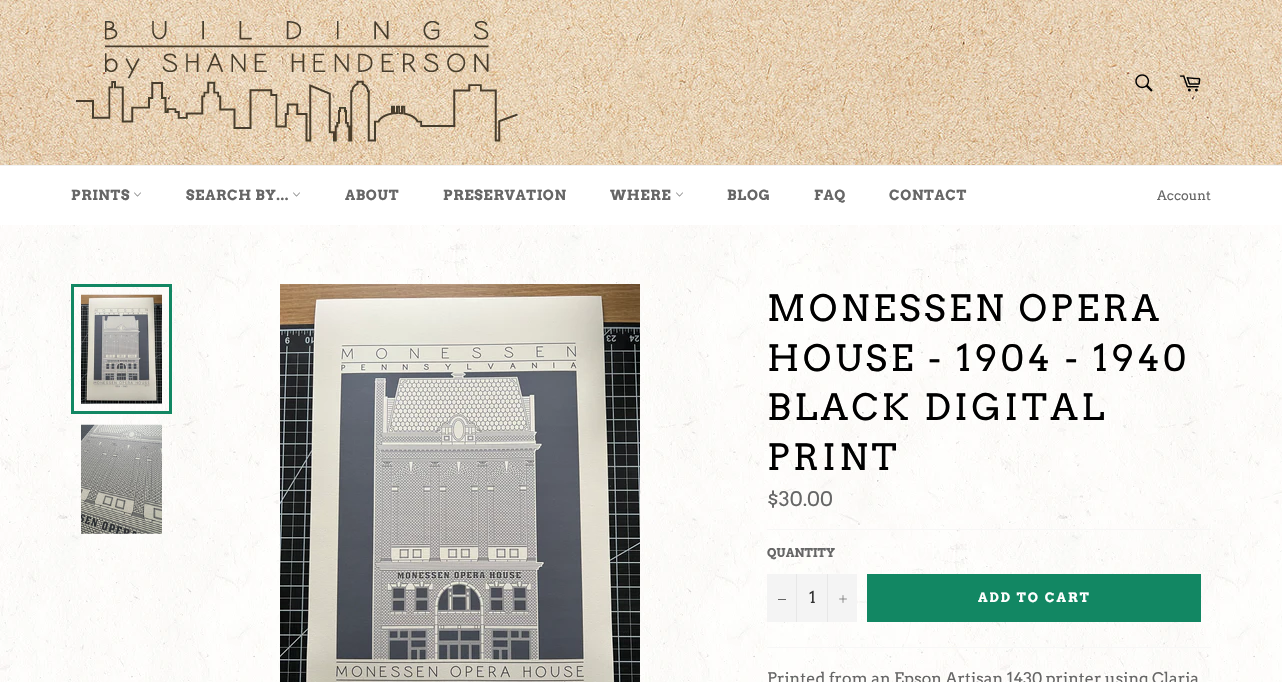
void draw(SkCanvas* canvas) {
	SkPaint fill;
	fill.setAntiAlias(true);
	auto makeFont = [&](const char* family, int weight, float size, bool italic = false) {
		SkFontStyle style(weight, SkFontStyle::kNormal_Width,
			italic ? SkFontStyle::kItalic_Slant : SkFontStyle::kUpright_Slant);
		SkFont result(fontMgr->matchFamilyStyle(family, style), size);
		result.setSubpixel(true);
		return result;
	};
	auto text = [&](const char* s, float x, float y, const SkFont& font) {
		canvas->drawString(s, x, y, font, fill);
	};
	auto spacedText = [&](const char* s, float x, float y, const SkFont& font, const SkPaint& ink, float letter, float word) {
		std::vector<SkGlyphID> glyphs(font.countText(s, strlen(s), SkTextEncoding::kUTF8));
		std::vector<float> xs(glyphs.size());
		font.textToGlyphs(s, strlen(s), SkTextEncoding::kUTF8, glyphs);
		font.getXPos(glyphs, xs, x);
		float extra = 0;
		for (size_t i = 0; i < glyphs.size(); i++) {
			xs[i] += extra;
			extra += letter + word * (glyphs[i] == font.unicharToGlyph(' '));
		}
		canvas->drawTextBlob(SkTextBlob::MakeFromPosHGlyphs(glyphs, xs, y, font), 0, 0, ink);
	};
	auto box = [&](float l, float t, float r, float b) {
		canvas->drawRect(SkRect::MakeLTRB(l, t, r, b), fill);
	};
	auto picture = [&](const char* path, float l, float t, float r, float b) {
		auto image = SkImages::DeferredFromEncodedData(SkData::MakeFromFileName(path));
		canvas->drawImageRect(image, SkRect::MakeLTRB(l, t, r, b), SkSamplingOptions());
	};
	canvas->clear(0xFFFFFFFF);
	picture("image0.png", 0, 0, 1282, 165);
	picture("image1.png", 76, 21, 518, 142);
	picture("image2.png", 1135, 74, 1153, 92);
	picture("image3.png", 1179, 75, 1201, 92);
	fill.setColor(0xFFF2F2F2);
	box(0, 165, 1282, 166);
	picture("image4.png", 134, 192, 141, 197);
	picture("image4.png", 293, 192, 300, 197);
	picture("image4.png", 676, 192, 683, 197);
	picture("image5.png", 0, 225, 1282, 682);
	picture("image6.png", 81, 294, 162, 404);
	fill.setStyle(SkPaint::kStroke_Style);
	fill.setStrokeWidth(3);
	fill.setColor(0xFF128763);
	canvas->drawRect(SkRect::MakeLTRB(72.5f, 285.5f, 170.5f, 412.5f), fill);
	picture("image7.png", 81, 424, 162, 534);
	picture("image8.png", 280, 284, 640, 682);
	fill.setStyle(SkPaint::kFill_Style);
	fill.setColor(0xFFF7F7F7);
	box(767, 529, 1211, 530);
	fill.setColor(0xFFF4F4F4);
	box(767, 574, 857, 622);
	fill.setColor(0xFFE7E7E7);
	box(796, 574, 797, 622);
	fill.setColor(0xFF666666);
	box(778, 599, 786, 600);
	fill.setColor(0xFFE7E7E7);
	box(827, 574, 828, 622);
	picture("image9.png", 839, 595, 847, 603);
	fill.setColor(0xFF128763);
	box(867, 574, 1201, 622);
	fill.setColor(0xFFF7F7F7);
	box(767, 647, 1211, 648);
	auto font1 = makeFont("Arvo", 700, 14);
	fill.setColor(0xFF666666);
	spacedText("PRINTS", 71, 200, font1, fill, 0.6f, 0);
	spacedText("SEARCH BY...", 186, 200, font1, fill, 0.6f, 0);
	spacedText("ABOUT", 345, 200, font1, fill, 0.6f, 0);
	spacedText("PRESERVATION", 443, 200, font1, fill, 0.6f, 0);
	spacedText("WHERE", 610, 200, font1, fill, 0.6f, 0);
	spacedText("BLOG", 727, 200, font1, fill, 0.6f, 0);
	spacedText("FAQ", 814, 200, font1, fill, 0.6f, 0);
	spacedText("CONTACT", 889, 200, font1, fill, 0.6f, 0);
	auto font2 = makeFont("Arvo", 400, 13);
	text("Account", 1157, 200, font2);
	auto font3 = makeFont("Arvo", 400, 36);
	fill.setColor(0xFF000000);
	spacedText("MONESSEN OPERA", 767, 321, font3, fill, 3.6f, 0);
	spacedText("HOUSE - 1904 - 1940", 767, 371, font3, fill, 3.6f, 0);
	spacedText("BLACK DIGITAL", 767, 420, font3, fill, 3.6f, 0);
	spacedText("PRINT", 767, 470, font3, fill, 3.6f, 0);
	auto font4 = makeFont("Arvo", 400, 20);
	fill.setColor(0xFF666666);
	text("$30.00", 767, 506, font4);
	auto font5 = makeFont("Arvo", 700, 12);
	text("QUANTITY", 767, 557, font5);
	auto font6 = makeFont("Arvo", 400, 16);
	fill.setColor(0xFF333333);
	text("1", 809, 603, font6);
	auto font7 = makeFont("Arvo", 700, 13);
	fill.setColor(0xFFFFFFFF);
	spacedText("ADD TO CART", 978, 602, font7, fill, 2, 0);
	fill.setColor(0xFF666666);
	text("Printed from an Epson Artisan 1430 printer using Claria", 767, 684, font6);
}
